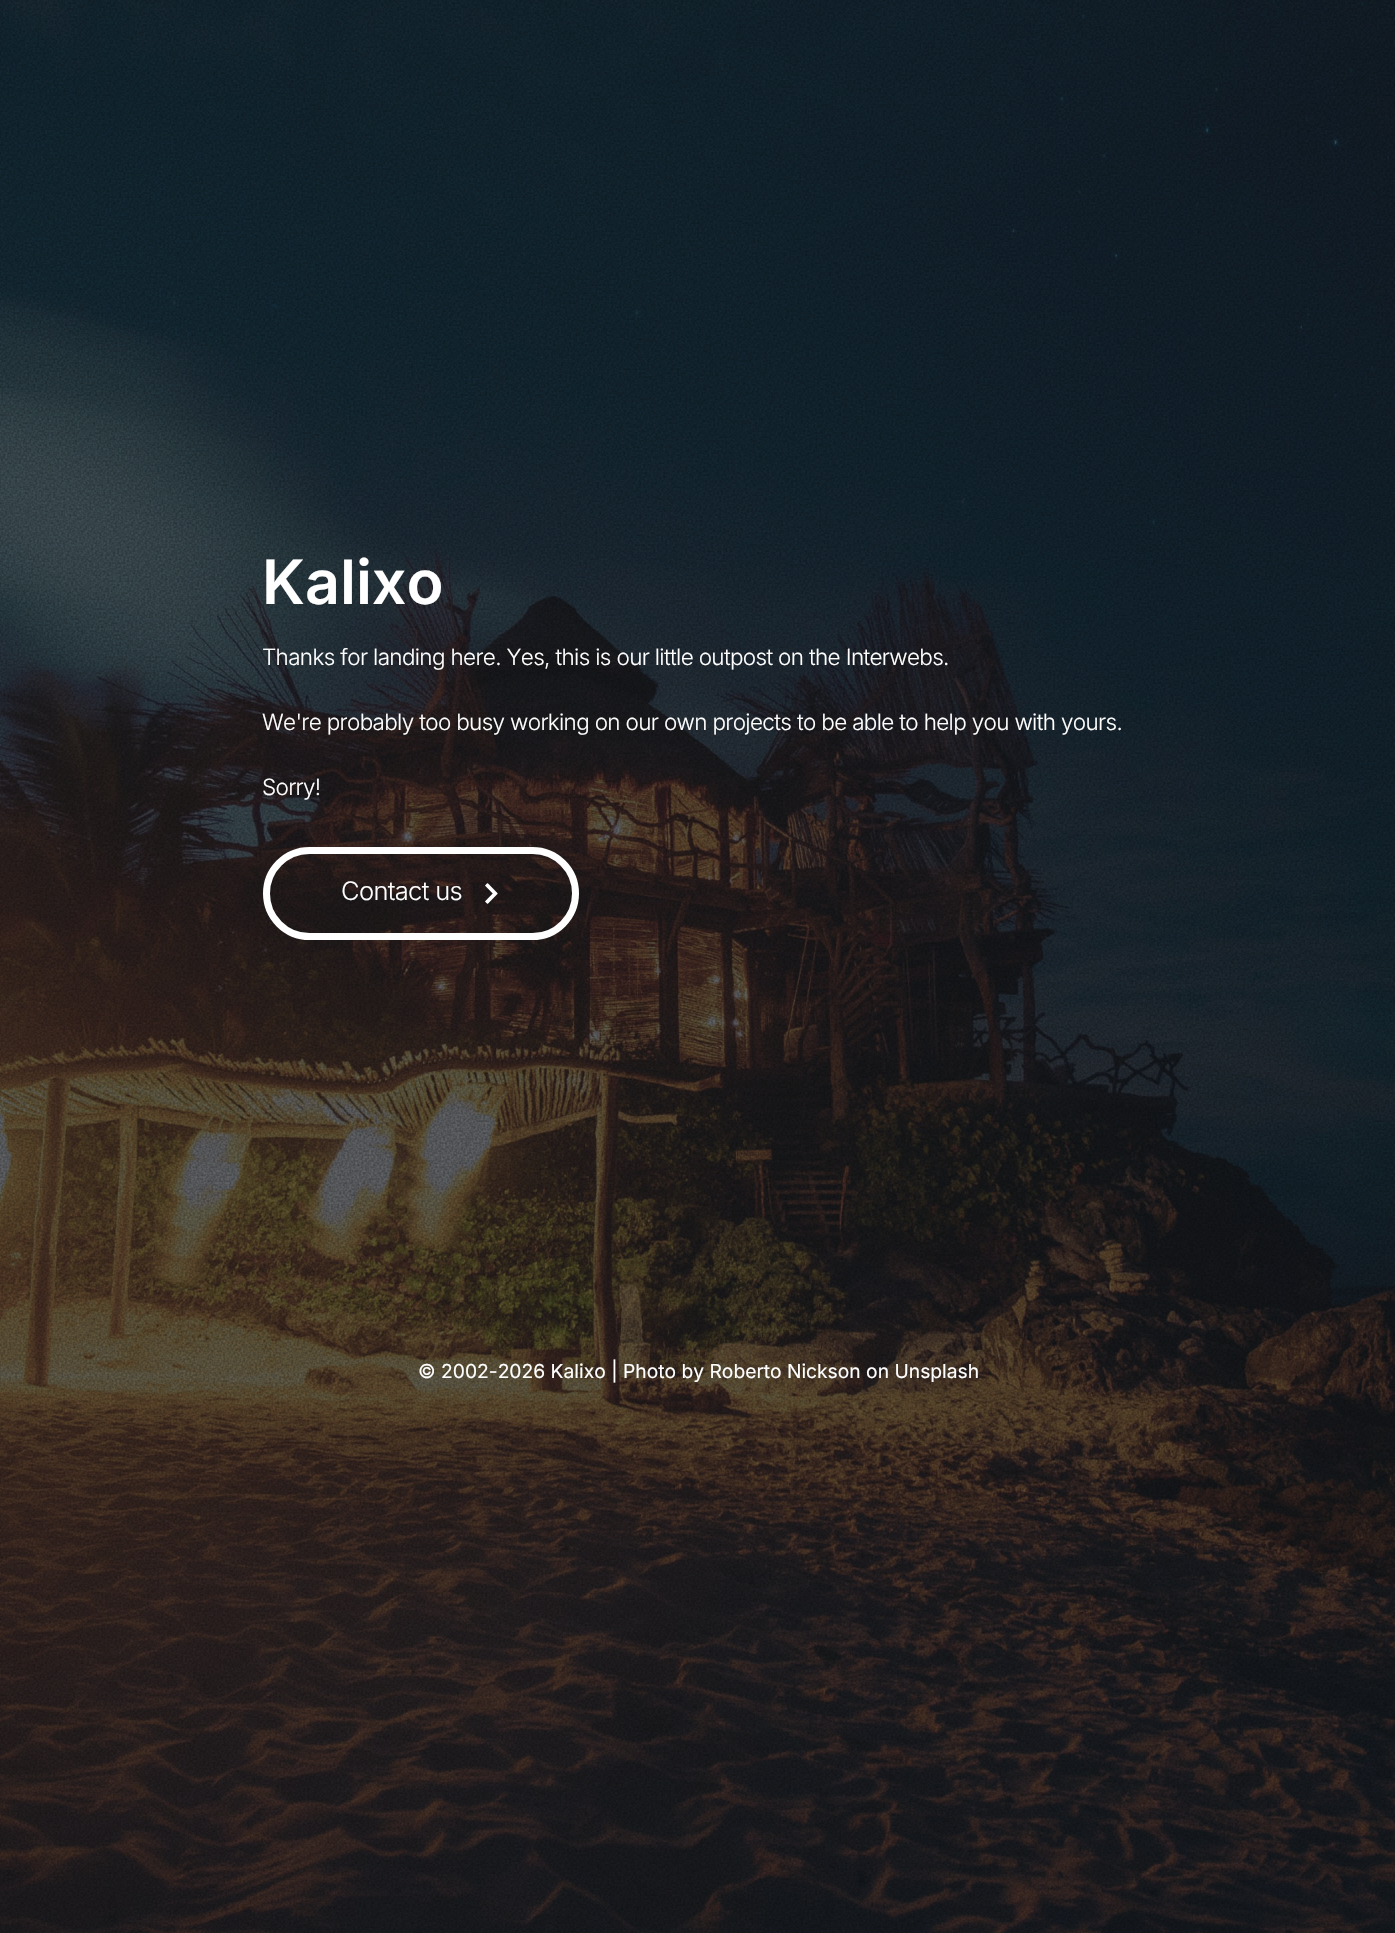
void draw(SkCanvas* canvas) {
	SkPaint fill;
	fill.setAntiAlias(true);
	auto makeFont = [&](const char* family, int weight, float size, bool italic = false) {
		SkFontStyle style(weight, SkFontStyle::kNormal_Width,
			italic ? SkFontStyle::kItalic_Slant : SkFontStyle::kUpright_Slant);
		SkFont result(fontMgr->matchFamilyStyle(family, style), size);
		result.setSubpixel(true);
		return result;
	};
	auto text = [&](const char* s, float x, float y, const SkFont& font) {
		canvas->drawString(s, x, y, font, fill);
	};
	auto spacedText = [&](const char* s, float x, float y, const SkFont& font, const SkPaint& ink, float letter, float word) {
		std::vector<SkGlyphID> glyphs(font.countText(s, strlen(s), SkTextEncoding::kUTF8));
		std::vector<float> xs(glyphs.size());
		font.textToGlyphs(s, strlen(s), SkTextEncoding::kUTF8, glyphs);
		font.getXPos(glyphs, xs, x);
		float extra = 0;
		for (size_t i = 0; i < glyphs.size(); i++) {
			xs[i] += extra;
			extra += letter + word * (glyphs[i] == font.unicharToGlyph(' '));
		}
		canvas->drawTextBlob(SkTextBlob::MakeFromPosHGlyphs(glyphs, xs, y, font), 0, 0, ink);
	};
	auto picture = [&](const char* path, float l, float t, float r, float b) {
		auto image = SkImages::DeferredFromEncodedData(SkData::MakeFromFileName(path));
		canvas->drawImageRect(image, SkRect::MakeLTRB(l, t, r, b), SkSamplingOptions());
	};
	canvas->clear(0xFFFFFFFF);
	picture("image0.png", 0, 0, 1395, 1933);
	fill.setStyle(SkPaint::kStroke_Style);
	fill.setStrokeWidth(7);
	fill.setColor(0xFFFFFFFF);
	canvas->drawRoundRect(SkRect::MakeLTRB(266.5f, 850.5f, 575.5f, 936.5f), 43, 43, fill);
	picture("image1.png", 485, 883, 498, 904);
	auto font1 = makeFont("Inter", 600, 61);
	fill.setStyle(SkPaint::kFill_Style);
	text("Kalixo", 262, 604, font1);
	auto font2 = makeFont("Inter", 300, 22.45f);
	spacedText("Thanks for landing here. Yes, this is our little outpost on the Interwebs.", 262, 665, font2, fill, -0.65f, 0);
	spacedText("We're probably too busy working on our own projects to be able to help you with yours.", 262, 730, font2, fill, -0.65f, 0);
	spacedText("Sorry!", 262, 795, font2, fill, -0.65f, 0);
	auto font3 = makeFont("Inter", 300, 25.5f);
	spacedText("Contact us", 341, 900, font3, fill, -0.65f, 0);
	auto font4 = makeFont("Inter", 400, 19.25f);
	text("© 2002-2026 Kalixo | Photo by Roberto Nickson on Unsplash", 418, 1378, font4);
}
